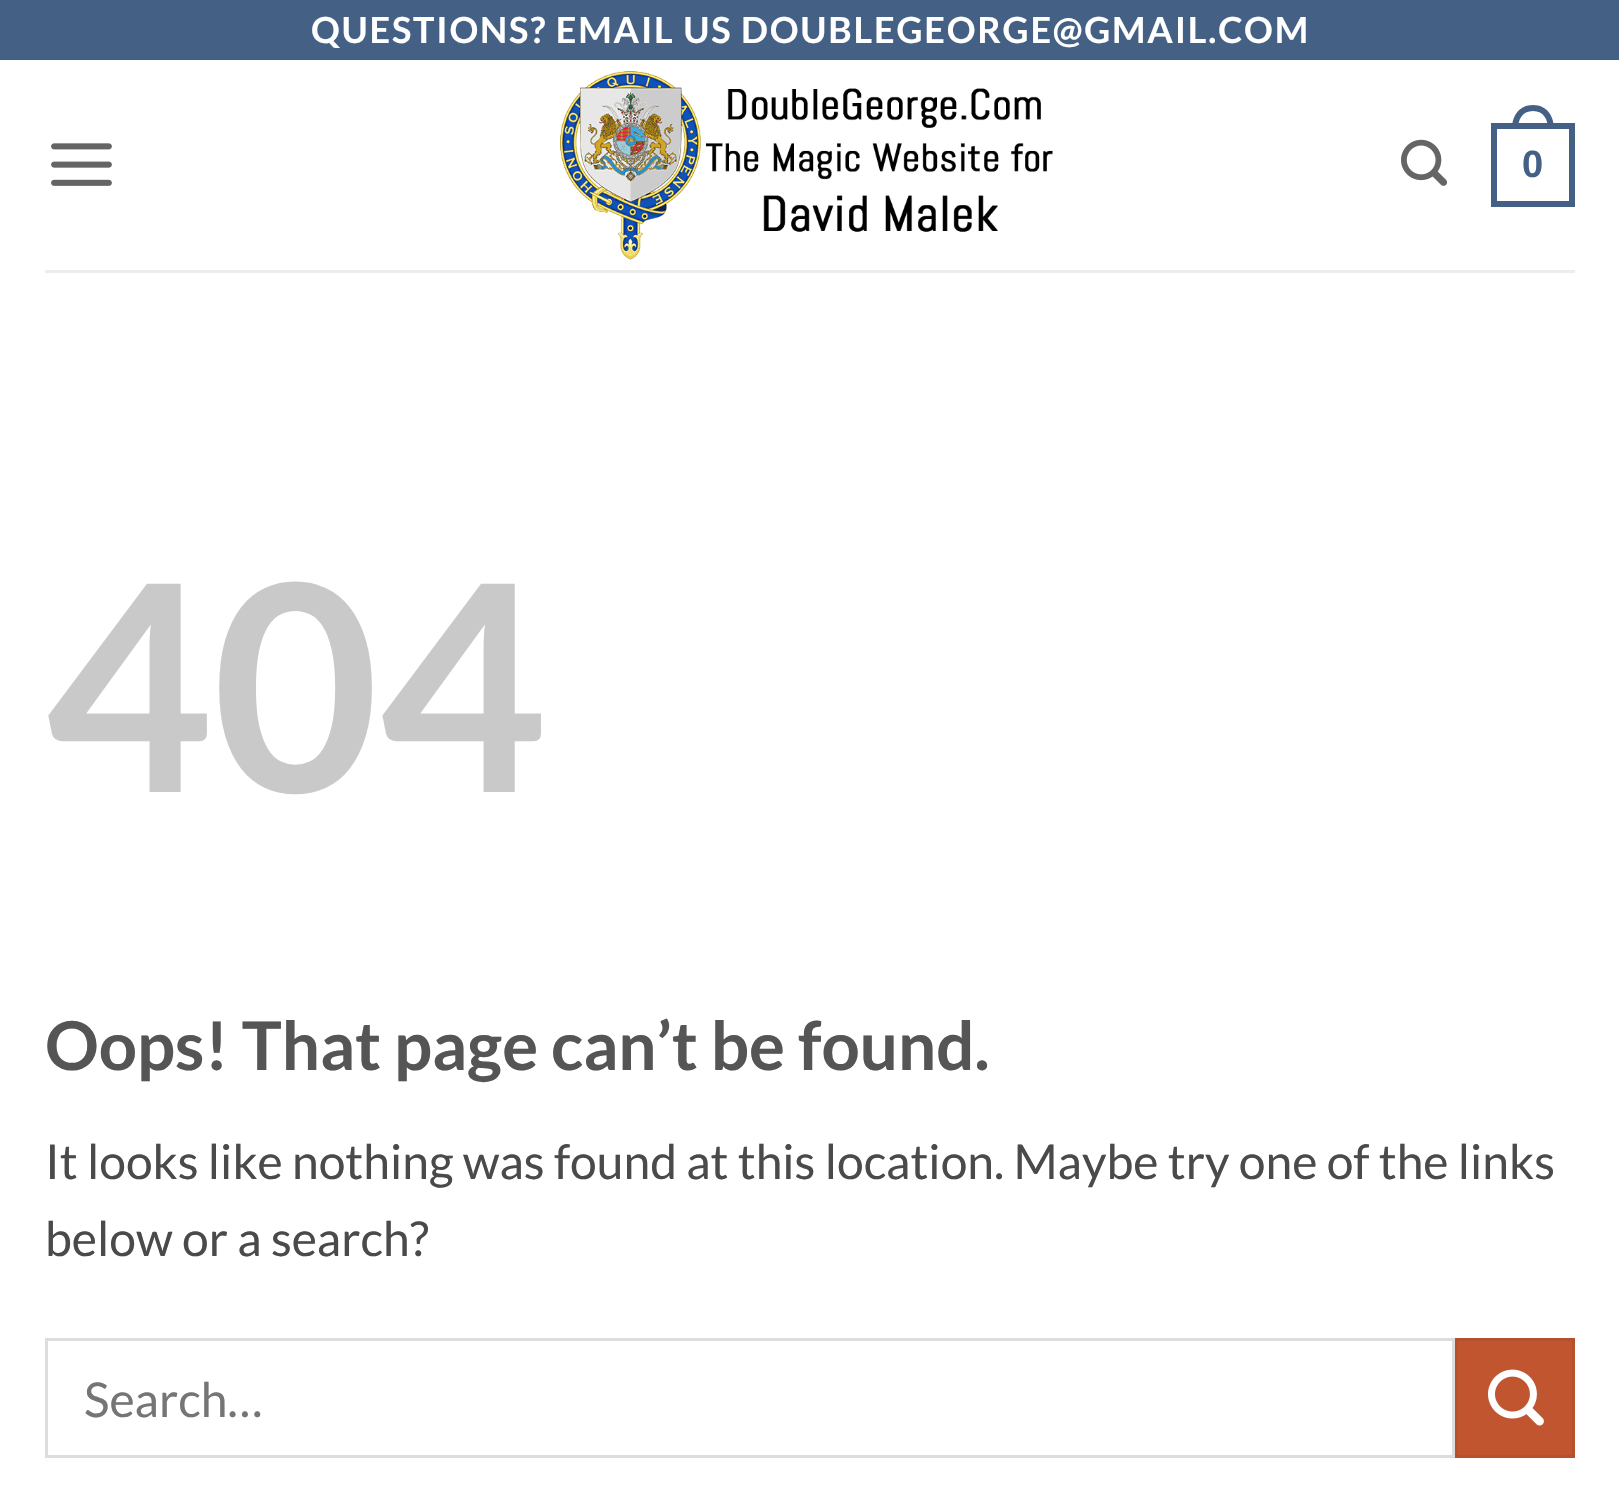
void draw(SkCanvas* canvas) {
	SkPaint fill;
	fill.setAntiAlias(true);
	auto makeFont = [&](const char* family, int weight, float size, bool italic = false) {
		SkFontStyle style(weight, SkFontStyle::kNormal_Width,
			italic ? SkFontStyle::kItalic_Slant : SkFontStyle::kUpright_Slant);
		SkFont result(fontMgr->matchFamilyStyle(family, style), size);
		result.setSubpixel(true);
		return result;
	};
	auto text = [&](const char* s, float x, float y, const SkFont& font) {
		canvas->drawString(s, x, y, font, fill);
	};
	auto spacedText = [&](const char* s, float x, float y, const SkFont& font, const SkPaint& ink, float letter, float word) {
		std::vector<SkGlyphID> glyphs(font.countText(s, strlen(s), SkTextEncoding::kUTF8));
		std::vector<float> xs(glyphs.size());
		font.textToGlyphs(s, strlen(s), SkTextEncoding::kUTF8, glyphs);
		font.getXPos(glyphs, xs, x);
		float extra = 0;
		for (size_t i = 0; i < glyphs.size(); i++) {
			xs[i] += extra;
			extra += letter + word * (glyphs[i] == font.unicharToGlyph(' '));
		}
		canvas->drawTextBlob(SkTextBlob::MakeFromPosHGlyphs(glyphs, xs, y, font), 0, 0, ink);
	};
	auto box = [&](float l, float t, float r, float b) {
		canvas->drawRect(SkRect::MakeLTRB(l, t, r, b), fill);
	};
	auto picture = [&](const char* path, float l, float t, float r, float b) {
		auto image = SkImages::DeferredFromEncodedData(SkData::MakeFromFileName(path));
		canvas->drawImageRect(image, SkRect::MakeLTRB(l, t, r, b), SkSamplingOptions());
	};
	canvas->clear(0xFFFFFFFF);
	fill.setColor(0xFF446084);
	box(0, 0, 1619, 60);
	picture("image0.png", 51, 143, 112, 186);
	picture("image1.png", 560, 71, 1053, 260);
	picture("image2.png", 1401, 139, 1448, 186);
	fill.setStyle(SkPaint::kStroke_Style);
	fill.setStrokeWidth(6);
	canvas->drawRect(SkRect::MakeLTRB(1494, 126, 1572, 204), fill);
	fill.setStyle(SkPaint::kFill_Style);
	canvas->drawPath(SkPathBuilder(SkPathFillType::kEvenOdd).moveTo(1533, 105).cubicTo(1547, 105, 1554, 116, 1554, 129).lineTo(1512, 129).cubicTo(1512, 116, 1519, 105, 1533, 105).close().moveTo(1533, 111).cubicTo(1544, 111, 1548, 120, 1548, 129).lineTo(1518, 129).cubicTo(1518, 120, 1522, 111, 1533, 111).close().detach(), fill);
	fill.setColor(0xFFEDEDED);
	box(45, 270, 1575, 273);
	fill.setStyle(SkPaint::kStroke_Style);
	fill.setStrokeWidth(3);
	fill.setColor(0xFFDDDDDD);
	canvas->drawRect(SkRect::MakeLTRB(46.5f, 1339.5f, 1453.5f, 1456.5f), fill);
	fill.setStyle(SkPaint::kFill_Style);
	fill.setColor(0xFFC05530);
	canvas->drawRect(SkRect::MakeLTRB(1456.5f, 1339.5f, 1573.5f, 1456.5f), fill);
	fill.setStyle(SkPaint::kStroke_Style);
	fill.setColor(0xFFB6512E);
	canvas->drawRect(SkRect::MakeLTRB(1456.5f, 1339.5f, 1573.5f, 1456.5f), fill);
	picture("image3.png", 1488, 1369, 1544, 1426);
	auto font1 = makeFont("Lato", 700, 36);
	fill.setStyle(SkPaint::kFill_Style);
	fill.setColor(0xFFFFFFFF);
	spacedText("QUESTIONS? EMAIL US DOUBLEGEORGE@GMAIL.COM", 311, 43, font1, fill, 1.8f, 0);
	auto font2 = makeFont("Liberation Sans", 700, 38);
	fill.setColor(0xFF446084);
	text("0", 1522, 177, font2);
	auto font3 = makeFont("Lato", 700, 288);
	fill.setColor(0xFFC9C9C9);
	text("404", 45, 792, font3);
	auto font4 = makeFont("Lato", 700, 67.25f);
	fill.setColor(0xFF555555);
	text("Oops! That page can’t be found.", 45, 1070, font4);
	auto font5 = makeFont("Lato", 400, 48);
	fill.setColor(0xFF4A4A4A);
	text("It looks like nothing was found at this location. Maybe try one of the links", 45, 1179, font5);
	text("below or a search?", 45, 1256, font5);
	fill.setColor(0xFF757575);
	text("Search…", 84, 1417, font5);
}
